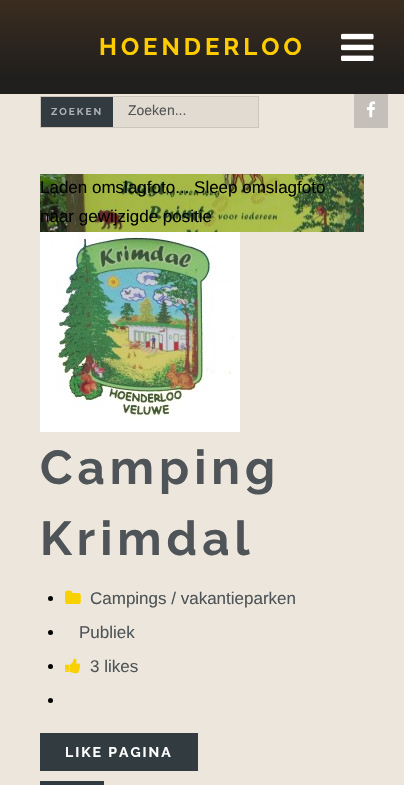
void draw(SkCanvas* canvas) {
	SkPaint fill;
	fill.setAntiAlias(true);
	auto makeFont = [&](const char* family, int weight, float size, bool italic = false) {
		SkFontStyle style(weight, SkFontStyle::kNormal_Width,
			italic ? SkFontStyle::kItalic_Slant : SkFontStyle::kUpright_Slant);
		SkFont result(fontMgr->matchFamilyStyle(family, style), size);
		result.setSubpixel(true);
		return result;
	};
	auto text = [&](const char* s, float x, float y, const SkFont& font) {
		canvas->drawString(s, x, y, font, fill);
	};
	auto spacedText = [&](const char* s, float x, float y, const SkFont& font, const SkPaint& ink, float letter, float word) {
		std::vector<SkGlyphID> glyphs(font.countText(s, strlen(s), SkTextEncoding::kUTF8));
		std::vector<float> xs(glyphs.size());
		font.textToGlyphs(s, strlen(s), SkTextEncoding::kUTF8, glyphs);
		font.getXPos(glyphs, xs, x);
		float extra = 0;
		for (size_t i = 0; i < glyphs.size(); i++) {
			xs[i] += extra;
			extra += letter + word * (glyphs[i] == font.unicharToGlyph(' '));
		}
		canvas->drawTextBlob(SkTextBlob::MakeFromPosHGlyphs(glyphs, xs, y, font), 0, 0, ink);
	};
	auto box = [&](float l, float t, float r, float b) {
		canvas->drawRect(SkRect::MakeLTRB(l, t, r, b), fill);
	};
	auto picture = [&](const char* path, float l, float t, float r, float b) {
		auto image = SkImages::DeferredFromEncodedData(SkData::MakeFromFileName(path));
		canvas->drawImageRect(image, SkRect::MakeLTRB(l, t, r, b), SkSamplingOptions());
	};
	canvas->clear(0xFFEDE6DC);
	{
		const SkColor colors[] = {0xFF3B2D20, 0xFF211F1D};
		const float stops[] = {0, 0.8f};
		const SkPoint ends[] = {{202, 0}, {202, 94}};
		fill.setShader(SkGradientShader::MakeLinear(ends, colors, stops, 2, SkTileMode::kClamp));
		fill.setAlpha(255);
	}
	box(0, 0, 404, 94);
	picture("image0.png", 341, 33, 374, 61);
	fill.setShader(nullptr);
	fill.setColor(0xFFE1DBD1);
	box(113, 97, 258, 127);
	fill.setStyle(SkPaint::kStroke_Style);
	fill.setStrokeWidth(1);
	fill.setColor(0xFFCBC5BC);
	canvas->drawRect(SkRect::MakeLTRB(40.5f, 96.5f, 258.5f, 127.5f), fill);
	fill.setStyle(SkPaint::kFill_Style);
	fill.setColor(0xFF323B40);
	box(41, 97, 113, 127);
	fill.setColor(0xFFC4BFB8);
	box(354, 94, 388, 128);
	picture("image1.png", 366, 101, 376, 118);
	picture("image2.png", 40, 174, 364, 232);
	picture("image3.png", 40, 232, 240, 432);
	fill.setColor(0xFF030303);
	canvas->drawCircle(50.5f, 598.5f, 2.5f, fill);
	picture("image4.png", 65, 590, 81, 604);
	canvas->drawCircle(50.5f, 632.5f, 2.5f, fill);
	canvas->drawCircle(50.5f, 666.5f, 2.5f, fill);
	picture("image5.png", 65, 658, 81, 674);
	canvas->drawCircle(50.5f, 700.5f, 2.5f, fill);
	fill.setColor(0xFF323B40);
	box(40, 733, 198, 771);
	box(40, 781, 104, 785);
	auto font1 = makeFont("Raleway", 700, 24);
	fill.setColor(0xFFFFCC00);
	spacedText("HOENDERLOO", 99, 55, font1, fill, 4, 0);
	auto font2 = makeFont("Raleway", 700, 10);
	fill.setColor(0xFFADB1B3);
	spacedText("ZOEKEN", 51, 115, font2, fill, 2, 0);
	auto font3 = makeFont("Liberation Sans", 400, 14);
	fill.setColor(0xFF555555);
	text("Zoeken...", 128, 115, font3);
	auto font4 = makeFont("Liberation Sans", 400, 17);
	fill.setColor(0xFF030303);
	text("Laden omslagfoto... Sleep omslagfoto", 40, 193, font4);
	text("naar gewijzigde positie", 40, 222, font4);
	auto font5 = makeFont("Raleway", 700, 47.5f);
	fill.setColor(0xFF4E5457);
	spacedText("Camping", 40, 484, font5, fill, 5, 0);
	spacedText("Krimdal", 40, 555, font5, fill, 5, 0);
	text("Campings / vakantieparken", 90, 604, font4);
	text("Publiek", 79, 638, font4);
	text("3 likes", 90, 672, font4);
	auto font6 = makeFont("Raleway", 700, 14);
	fill.setColor(0xFFFFFFFF);
	spacedText("LIKE PAGINA", 65, 757, font6, fill, 2, 0);
}
